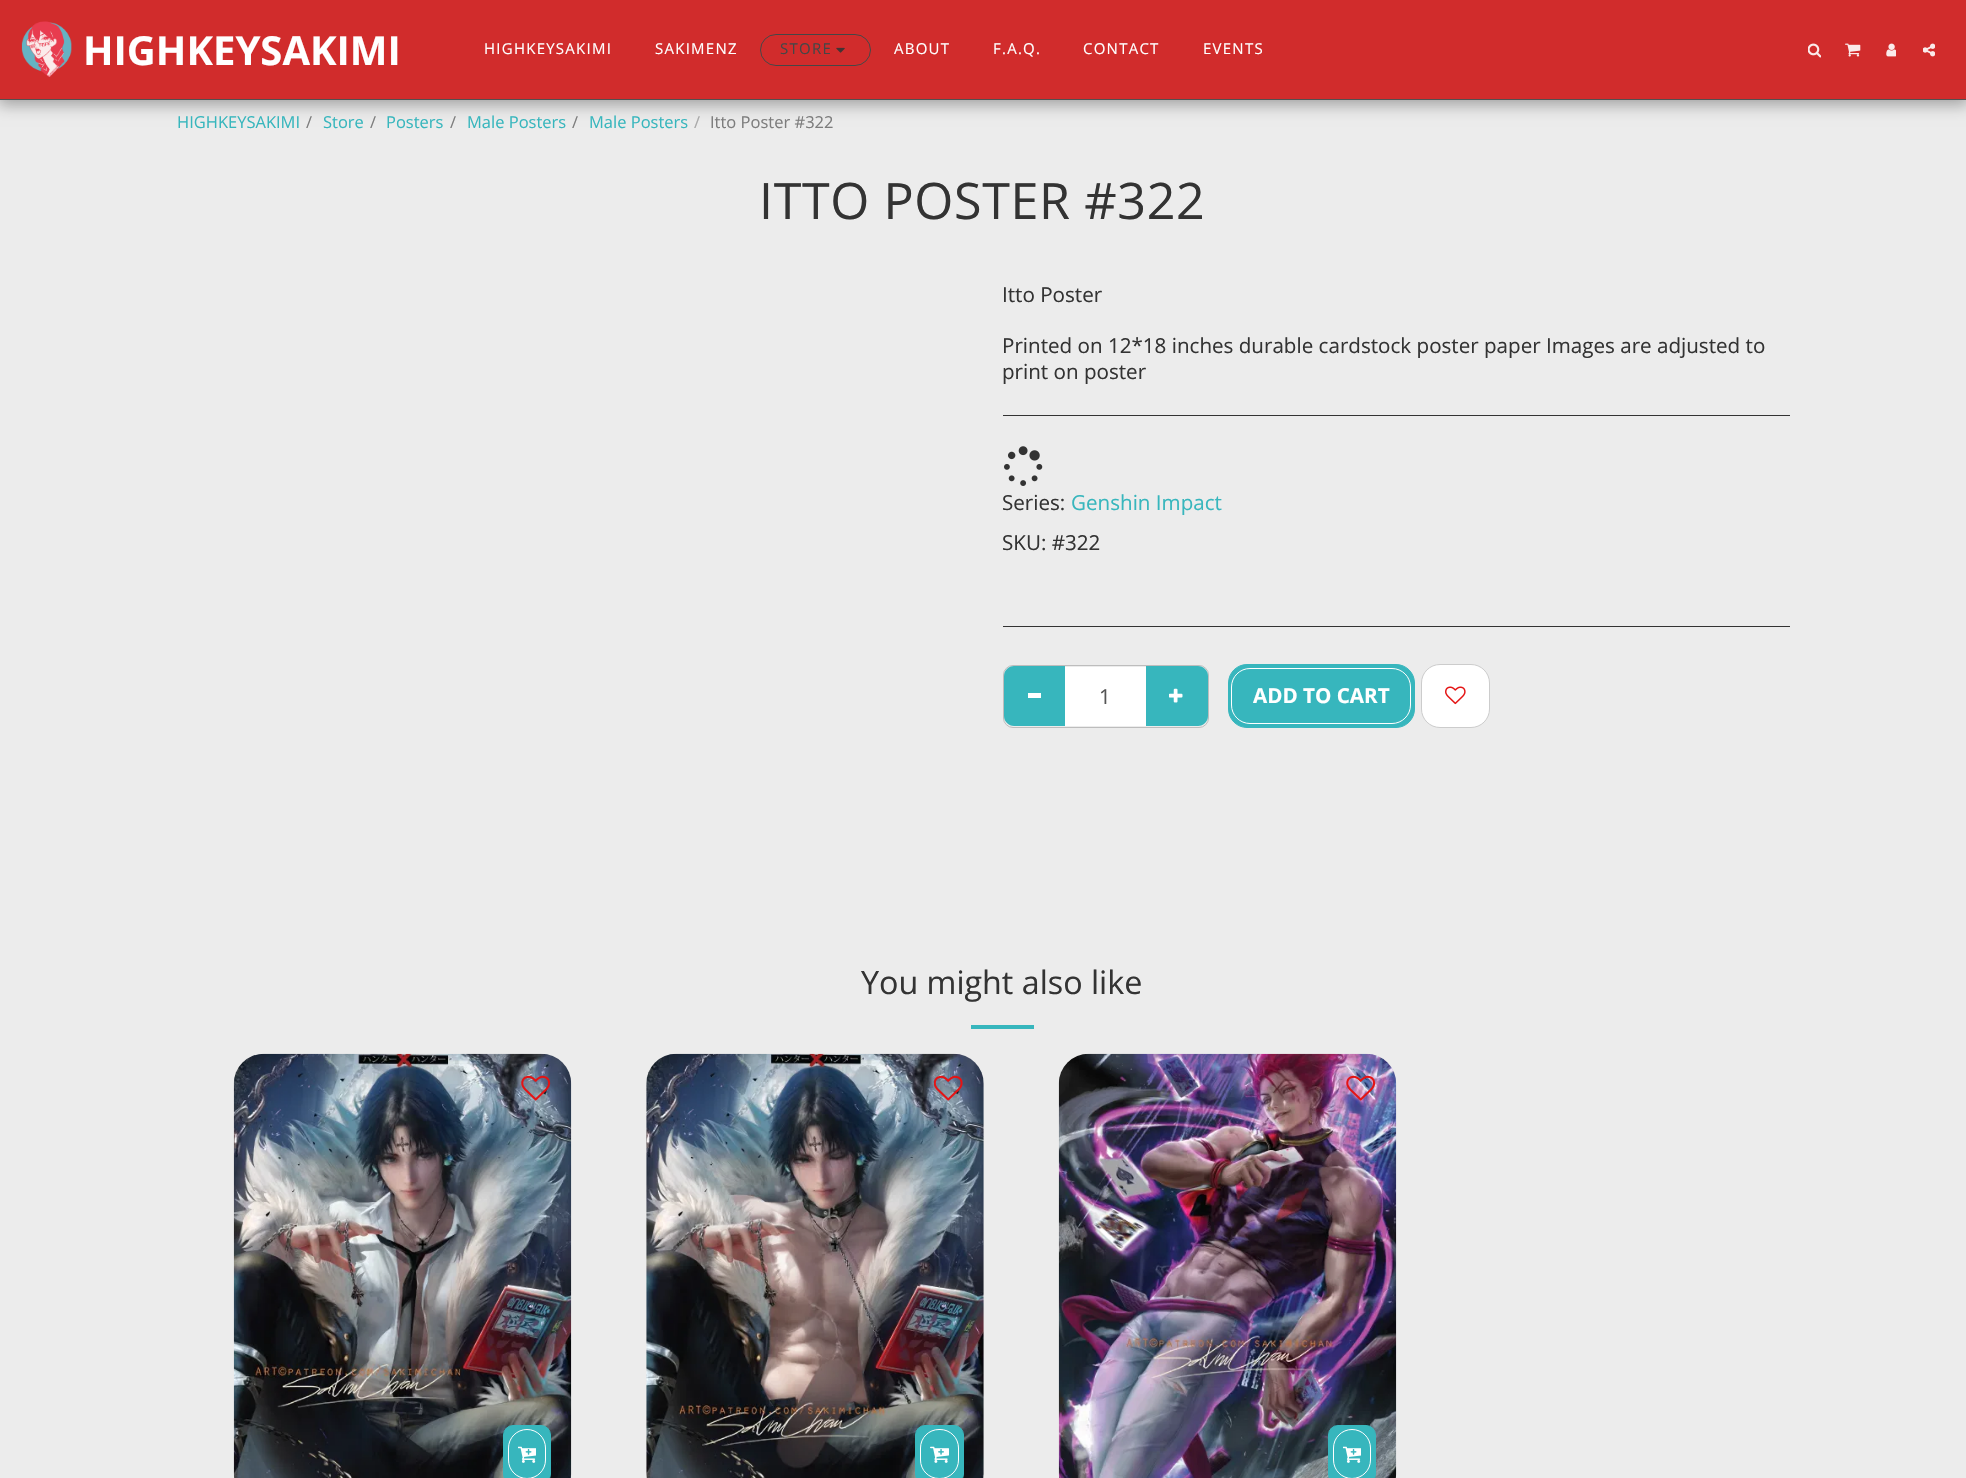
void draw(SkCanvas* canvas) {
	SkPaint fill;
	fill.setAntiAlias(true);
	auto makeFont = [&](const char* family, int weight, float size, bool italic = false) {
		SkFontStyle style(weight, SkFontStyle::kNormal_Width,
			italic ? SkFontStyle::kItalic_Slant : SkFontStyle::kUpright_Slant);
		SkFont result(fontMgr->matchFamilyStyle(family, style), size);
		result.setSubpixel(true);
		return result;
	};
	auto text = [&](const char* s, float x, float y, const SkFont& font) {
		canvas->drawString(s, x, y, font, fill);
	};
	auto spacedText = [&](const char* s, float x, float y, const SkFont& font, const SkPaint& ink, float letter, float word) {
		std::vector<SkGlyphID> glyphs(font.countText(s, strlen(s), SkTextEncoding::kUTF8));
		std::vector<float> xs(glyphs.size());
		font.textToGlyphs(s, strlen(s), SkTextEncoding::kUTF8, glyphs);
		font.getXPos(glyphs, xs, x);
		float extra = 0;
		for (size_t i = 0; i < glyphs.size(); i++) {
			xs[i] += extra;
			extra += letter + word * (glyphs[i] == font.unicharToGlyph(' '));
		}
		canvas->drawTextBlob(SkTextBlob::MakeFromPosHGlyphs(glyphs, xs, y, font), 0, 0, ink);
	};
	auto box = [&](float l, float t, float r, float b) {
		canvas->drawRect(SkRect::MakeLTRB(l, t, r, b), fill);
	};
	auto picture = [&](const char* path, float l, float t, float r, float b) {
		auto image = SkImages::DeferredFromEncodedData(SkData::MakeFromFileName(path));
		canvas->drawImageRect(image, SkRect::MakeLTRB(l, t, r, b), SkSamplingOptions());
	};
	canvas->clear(0xFFECECEC);
	fill.setColor(0x52000000);
	fill.setMaskFilter(SkMaskFilter::MakeBlur(kNormal_SkBlurStyle, 7.5f));
	canvas->drawRect(SkRect::MakeLTRB(-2, 0, 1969, 105), fill);
	fill.setMaskFilter(nullptr);
	fill.setColor(0xFFD12C2C);
	box(0, 0, 1966, 99);
	fill.setColor(0xFF515151);
	box(0, 99, 1966, 100);
	picture("image0.png", 21, 21, 72, 77);
	fill.setStyle(SkPaint::kStroke_Style);
	fill.setStrokeWidth(1);
	fill.setColor(0xFF464646);
	canvas->drawRoundRect(SkRect::MakeLTRB(760.5f, 34.5f, 870.5f, 65.5f), 15.5f, 15.5f, fill);
	picture("image1.png", 836, 47, 845, 53);
	picture("image2.png", 1808, 43, 1821, 58);
	picture("image3.png", 1845, 43, 1861, 57);
	picture("image4.png", 1886, 43, 1896, 57);
	picture("image5.png", 1923, 43, 1935, 57);
	fill.setStyle(SkPaint::kFill_Style);
	fill.setColor(0xFF333333);
	box(1003, 415, 1790, 416);
	picture("image6.png", 1004, 446, 1043, 486);
	box(1003, 626, 1790, 627);
	fill.setStyle(SkPaint::kStroke_Style);
	fill.setColor(0xFFBDBDBD);
	canvas->drawRoundRect(SkRect::MakeLTRB(1003.5f, 665.5f, 1208.5f, 727.5f), 9.5f, 9.5f, fill);
	fill.setStyle(SkPaint::kFill_Style);
	fill.setColor(0xFF37B6BD);
	canvas->drawPath(SkPathBuilder().moveTo(1014, 666).lineTo(1066, 666).lineTo(1066, 726).lineTo(1014, 726).cubicTo(1008.5f, 726, 1004, 721.5f, 1004, 716).lineTo(1004, 676).cubicTo(1004, 670.5f, 1008.5f, 666, 1014, 666).close().detach(), fill);
	fill.setColor(0xFFFFFFFF);
	box(1028, 693, 1041, 698);
	fill.setColor(0xFF37B6BD);
	canvas->drawPath(SkPathBuilder().moveTo(1145, 666).lineTo(1198, 666).cubicTo(1203.5f, 666, 1208, 670.5f, 1208, 676).lineTo(1208, 716).cubicTo(1208, 721.5f, 1203.5f, 726, 1198, 726).lineTo(1145, 726).close().detach(), fill);
	fill.setColor(0xFFFFFFFF);
	box(1065, 667, 1146, 726);
	fill.setColor(0xFFECECEC);
	box(1065, 666, 1146, 667);
	picture("image7.png", 1169, 688, 1183, 703);
	fill.setColor(0xFF37B6BD);
	canvas->drawRoundRect(SkRect::MakeLTRB(1228.5f, 664.5f, 1414.5f, 727.5f), 18.5f, 18.5f, fill);
	fill.setStyle(SkPaint::kStroke_Style);
	canvas->drawRoundRect(SkRect::MakeLTRB(1228.5f, 664.5f, 1414.5f, 727.5f), 18.5f, 18.5f, fill);
	fill.setColor(0xFFFFFFFF);
	canvas->drawRoundRect(SkRect::MakeLTRB(1231.5f, 668.5f, 1410.5f, 723.5f), 18.5f, 18.5f, fill);
	fill.setStyle(SkPaint::kFill_Style);
	canvas->drawRoundRect(SkRect::MakeLTRB(1421.5f, 664.5f, 1489.5f, 727.5f), 18.5f, 18.5f, fill);
	fill.setStyle(SkPaint::kStroke_Style);
	fill.setColor(0xFFCCCCCC);
	canvas->drawRoundRect(SkRect::MakeLTRB(1421.5f, 664.5f, 1489.5f, 727.5f), 18.5f, 18.5f, fill);
	picture("image8.png", 1445, 686, 1466, 705);
	fill.setStyle(SkPaint::kFill_Style);
	fill.setColor(0xFF37B6BD);
	box(971, 1025, 1034, 1029);
	picture("image9.png", 233, 1053, 572, 1478);
	picture("image10.png", 521, 1075, 551, 1101);
	canvas->drawRoundRect(SkRect::MakeLTRB(503.5f, 1425.5f, 550.5f, 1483.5f), 9.5f, 9.5f, fill);
	fill.setStyle(SkPaint::kStroke_Style);
	canvas->drawRoundRect(SkRect::MakeLTRB(503.5f, 1425.5f, 550.5f, 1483.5f), 9.5f, 9.5f, fill);
	fill.setColor(0xFFFFFFFF);
	canvas->drawRoundRect(SkRect::MakeLTRB(508.5f, 1429.5f, 545.5f, 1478.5f), 18.5f, 18.5f, fill);
	picture("image11.png", 518, 1446, 536, 1463);
	picture("image12.png", 646, 1053, 984, 1478);
	picture("image13.png", 934, 1075, 963, 1101);
	fill.setStyle(SkPaint::kFill_Style);
	fill.setColor(0xFF37B6BD);
	canvas->drawRoundRect(SkRect::MakeLTRB(915.5f, 1425.5f, 963.5f, 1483.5f), 9.5f, 9.5f, fill);
	fill.setStyle(SkPaint::kStroke_Style);
	canvas->drawRoundRect(SkRect::MakeLTRB(915.5f, 1425.5f, 963.5f, 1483.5f), 9.5f, 9.5f, fill);
	fill.setColor(0xFFFFFFFF);
	canvas->drawRoundRect(SkRect::MakeLTRB(920.5f, 1429.5f, 958.5f, 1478.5f), 18.5f, 18.5f, fill);
	picture("image14.png", 930, 1446, 949, 1463);
	picture("image15.png", 1058, 1053, 1397, 1478);
	picture("image16.png", 1346, 1075, 1376, 1101);
	fill.setStyle(SkPaint::kFill_Style);
	fill.setColor(0xFF37B6BD);
	canvas->drawRoundRect(SkRect::MakeLTRB(1328.5f, 1425.5f, 1375.5f, 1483.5f), 9.5f, 9.5f, fill);
	fill.setStyle(SkPaint::kStroke_Style);
	canvas->drawRoundRect(SkRect::MakeLTRB(1328.5f, 1425.5f, 1375.5f, 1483.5f), 9.5f, 9.5f, fill);
	fill.setColor(0xFFFFFFFF);
	canvas->drawRoundRect(SkRect::MakeLTRB(1333.5f, 1429.5f, 1370.5f, 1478.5f), 18.5f, 18.5f, fill);
	picture("image11.png", 1343, 1446, 1361, 1463);
	auto font1 = makeFont("Open Sans", 700, 40);
	fill.setStyle(SkPaint::kFill_Style);
	text("HIGHKEYSAKIMI", 83, 65, font1);
	auto font2 = makeFont("Open Sans", 400, 15);
	spacedText("HIGHKEYSAKIMI", 484, 54, font2, fill, 1.25f, 0);
	spacedText("SAKIMENZ", 655, 54, font2, fill, 1.25f, 0);
	fill.setColor(0xFF464646);
	spacedText("STORE", 780, 54, font2, fill, 1.25f, 0);
	fill.setColor(0xFFFFFFFF);
	spacedText("ABOUT", 894, 54, font2, fill, 1.25f, 0);
	spacedText("F.A.Q.", 993, 54, font2, fill, 1.25f, 0);
	spacedText("CONTACT", 1083, 54, font2, fill, 1.25f, 0);
	spacedText("EVENTS", 1203, 54, font2, fill, 1.25f, 0);
	auto font3 = makeFont("Open Sans", 400, 16.5f);
	fill.setColor(0xFF37B6BD);
	text("HIGHKEYSAKIMI", 177, 128, font3);
	fill.setColor(0xFF7D7D7D);
	text("/", 306, 128, font3);
	fill.setColor(0xFF37B6BD);
	text("Store", 323, 128, font3);
	fill.setColor(0xFF7D7D7D);
	text("/", 370, 128, font3);
	fill.setColor(0xFF37B6BD);
	text("Posters", 386, 128, font3);
	fill.setColor(0xFF7D7D7D);
	text("/", 450, 128, font3);
	fill.setColor(0xFF37B6BD);
	text("Male Posters", 467, 128, font3);
	fill.setColor(0xFF7D7D7D);
	text("/", 572, 128, font3);
	fill.setColor(0xFF37B6BD);
	text("Male Posters", 589, 128, font3);
	fill.setColor(0xFFA9A9A9);
	text("/", 694, 128, font3);
	fill.setColor(0xFF7D7D7D);
	text("Itto Poster #322", 710, 128, font3);
	auto font4 = makeFont("Open Sans", 400, 50.25f);
	fill.setColor(0xFF333333);
	spacedText("ITTO POSTER #322", 759, 219, font4, fill, 0.6f, 0);
	auto font5 = makeFont("Open Sans", 400, 20.6f);
	text("Itto Poster", 1002, 302, font5);
	text("Printed on 12*18 inches durable cardstock poster paper Images are adjusted to", 1002, 353, font5);
	text("print on poster", 1002, 379, font5);
	text("Series:", 1002, 510, font5);
	fill.setColor(0xFF37B6BD);
	text("Genshin Impact", 1071, 510, font5);
	fill.setColor(0xFF333333);
	text("SKU: #322", 1002, 550, font5);
	fill.setColor(0xFF555555);
	text("1", 1099, 704, font5);
	auto font6 = makeFont("Open Sans", 700, 20.6f);
	fill.setColor(0xFFFFFFFF);
	text("ADD TO CART", 1253, 703, font6);
	auto font7 = makeFont("Open Sans", 400, 32.25f);
	fill.setColor(0xFF333333);
	text("You might also like", 861, 994, font7);
}
